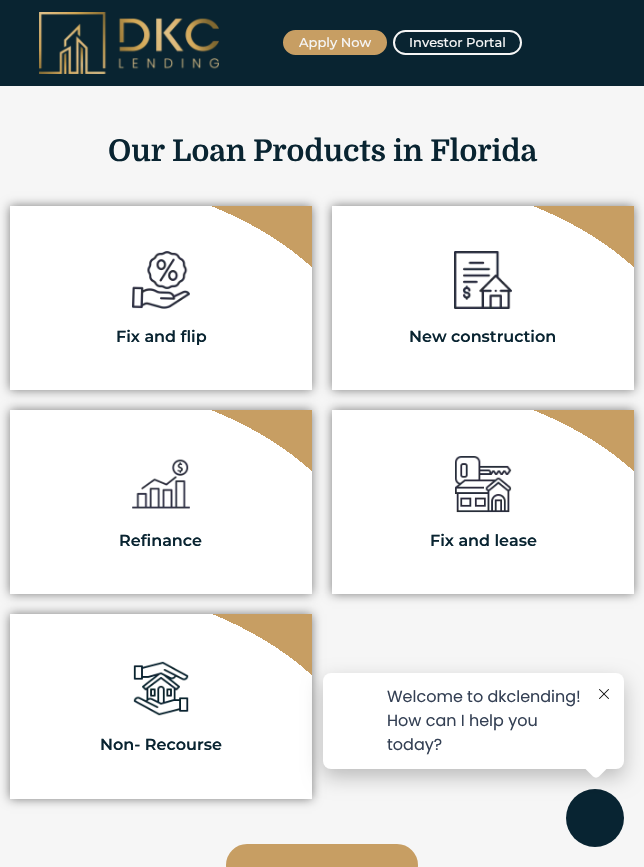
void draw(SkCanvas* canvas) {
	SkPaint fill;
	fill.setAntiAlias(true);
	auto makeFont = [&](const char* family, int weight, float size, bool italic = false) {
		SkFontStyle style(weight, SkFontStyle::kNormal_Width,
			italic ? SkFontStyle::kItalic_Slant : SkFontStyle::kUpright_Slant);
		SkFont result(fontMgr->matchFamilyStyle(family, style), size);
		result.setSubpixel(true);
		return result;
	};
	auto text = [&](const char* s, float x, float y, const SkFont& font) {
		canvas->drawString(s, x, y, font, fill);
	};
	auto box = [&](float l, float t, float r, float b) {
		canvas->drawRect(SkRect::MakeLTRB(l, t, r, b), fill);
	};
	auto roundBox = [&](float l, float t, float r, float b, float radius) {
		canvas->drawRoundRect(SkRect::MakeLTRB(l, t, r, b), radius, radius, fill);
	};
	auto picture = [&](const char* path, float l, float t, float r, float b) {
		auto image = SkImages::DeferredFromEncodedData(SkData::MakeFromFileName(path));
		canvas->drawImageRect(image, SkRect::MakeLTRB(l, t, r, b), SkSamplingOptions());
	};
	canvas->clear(0xFFF6F6F6);
	fill.setColor(0xFF092431);
	box(0, 0, 644, 86);
	picture("image0.png", 39, 12, 219, 74);
	fill.setColor(0xFFC79E63);
	canvas->drawRoundRect(SkRect::MakeLTRB(284, 31, 386, 54), 11.5f, 11.5f, fill);
	fill.setStyle(SkPaint::kStroke_Style);
	fill.setStrokeWidth(2);
	canvas->drawRoundRect(SkRect::MakeLTRB(284, 31, 386, 54), 11.5f, 11.5f, fill);
	fill.setColor(0xFFF6F6F6);
	canvas->drawRoundRect(SkRect::MakeLTRB(394, 31, 521, 54), 11.5f, 11.5f, fill);
	fill.setStyle(SkPaint::kFill_Style);
	fill.setColor(0x80000000);
	fill.setMaskFilter(SkMaskFilter::MakeBlur(kNormal_SkBlurStyle, 5));
	canvas->drawRect(SkRect::MakeLTRB(10, 206, 312, 390), fill);
	fill.setMaskFilter(nullptr);
	{
		const SkColor colors[] = {0xFFFFFFFF, 0xFFC79E63};
		const float stops[] = {0.85f, 0.85f};
		SkMatrix m = SkMatrix::Translate(10, 390).preScale(427, 260);
		fill.setShader(SkGradientShader::MakeRadial({0, 0}, 1, colors, stops, 2, SkTileMode::kClamp, 0, &m));
		fill.setAlpha(255);
	}
	box(10, 206, 312, 390);
	picture("image1.png", 132, 251, 190, 309);
	fill.setShader(nullptr);
	fill.setColor(0x80000000);
	fill.setMaskFilter(SkMaskFilter::MakeBlur(kNormal_SkBlurStyle, 5));
	canvas->drawRect(SkRect::MakeLTRB(332, 206, 634, 390), fill);
	fill.setMaskFilter(nullptr);
	{
		const SkColor colors[] = {0xFFFFFFFF, 0xFFC79E63};
		const float stops[] = {0.85f, 0.85f};
		SkMatrix m = SkMatrix::Translate(332, 390).preScale(427, 260);
		fill.setShader(SkGradientShader::MakeRadial({0, 0}, 1, colors, stops, 2, SkTileMode::kClamp, 0, &m));
		fill.setAlpha(255);
	}
	box(332, 206, 634, 390);
	picture("image2.png", 454, 251, 512, 309);
	fill.setShader(nullptr);
	fill.setColor(0x80000000);
	fill.setMaskFilter(SkMaskFilter::MakeBlur(kNormal_SkBlurStyle, 5));
	canvas->drawRect(SkRect::MakeLTRB(10, 410, 312, 594), fill);
	fill.setMaskFilter(nullptr);
	{
		const SkColor colors[] = {0xFFFFFFFF, 0xFFC79E63};
		const float stops[] = {0.85f, 0.85f};
		SkMatrix m = SkMatrix::Translate(10, 594).preScale(427, 260);
		fill.setShader(SkGradientShader::MakeRadial({0, 0}, 1, colors, stops, 2, SkTileMode::kClamp, 0, &m));
		fill.setAlpha(255);
	}
	box(10, 410, 312, 594);
	picture("image3.png", 132, 459, 190, 509);
	fill.setShader(nullptr);
	fill.setColor(0x80000000);
	fill.setMaskFilter(SkMaskFilter::MakeBlur(kNormal_SkBlurStyle, 5));
	canvas->drawRect(SkRect::MakeLTRB(332, 410, 634, 594), fill);
	fill.setMaskFilter(nullptr);
	{
		const SkColor colors[] = {0xFFFFFFFF, 0xFFC79E63};
		const float stops[] = {0.85f, 0.85f};
		SkMatrix m = SkMatrix::Translate(332, 594).preScale(427, 260);
		fill.setShader(SkGradientShader::MakeRadial({0, 0}, 1, colors, stops, 2, SkTileMode::kClamp, 0, &m));
		fill.setAlpha(255);
	}
	box(332, 410, 634, 594);
	picture("image4.png", 455, 456, 512, 513);
	fill.setShader(nullptr);
	fill.setColor(0x80000000);
	fill.setMaskFilter(SkMaskFilter::MakeBlur(kNormal_SkBlurStyle, 5));
	canvas->drawRect(SkRect::MakeLTRB(10, 614, 312, 799), fill);
	fill.setMaskFilter(nullptr);
	{
		const SkColor colors[] = {0xFFFFFFFF, 0xFFC79E63};
		const float stops[] = {0.85f, 0.85f};
		SkMatrix m = SkMatrix::Translate(10, 799).preScale(427, 262);
		fill.setShader(SkGradientShader::MakeRadial({0, 0}, 1, colors, stops, 2, SkTileMode::kClamp, 0, &m));
		fill.setAlpha(255);
	}
	box(10, 614, 312, 799);
	picture("image5.png", 133, 661, 189, 716);
	fill.setShader(nullptr);
	fill.setColor(0xFFC79E63);
	canvas->drawRoundRect(SkRect::MakeLTRB(227, 845, 417, 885), 20, 20, fill);
	fill.setStyle(SkPaint::kStroke_Style);
	canvas->drawRoundRect(SkRect::MakeLTRB(227, 845, 417, 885), 20, 20, fill);
	fill.setStyle(SkPaint::kFill_Style);
	fill.setColor(0xFF082432);
	canvas->drawCircle(595, 818, 29, fill);
	fill.setColor(0x3D000000);
	fill.setMaskFilter(SkMaskFilter::MakeBlur(kNormal_SkBlurStyle, 10));
	canvas->drawRoundRect(SkRect::MakeLTRB(323, 681, 624, 777), 8, 8, fill);
	fill.setMaskFilter(nullptr);
	fill.setColor(0xFFFFFFFF);
	roundBox(323, 673, 624, 769, 8);
	canvas->drawPath(SkPathBuilder().moveTo(599, 753.5f).lineTo(607.5f, 762).cubicTo(609, 763.5f, 609, 766.5f, 607.5f, 768).lineTo(599, 776.5f).cubicTo(597.5f, 778, 594.5f, 778, 593, 776.5f).lineTo(584.5f, 768).cubicTo(583, 766.5f, 583, 763.5f, 584.5f, 762).lineTo(593, 753.5f).cubicTo(594.5f, 752, 597.5f, 752, 599, 753.5f).close().detach(), fill);
	picture("image6.png", 599, 689, 609, 699);
	auto font1 = makeFont("Montserrat", 500, 13);
	fill.setColor(0xFFF6F6F6);
	text("Apply Now", 299, 47, font1);
	text("Investor Portal", 409, 47, font1);
	auto font2 = makeFont("Domine", 700, 30);
	fill.setColor(0xFF092431);
	text("Our Loan Products in Florida", 108, 161, font2);
	auto font3 = makeFont("Montserrat", 600, 16);
	text("Fix and flip", 116, 342, font3);
	text("New construction", 409, 342, font3);
	text("Refinance", 119, 546, font3);
	text("Fix and lease", 430, 546, font3);
	text("Non- Recourse", 100, 750, font3);
	auto font4 = makeFont("Poppins", 400, 16);
	fill.setColor(0xFF344054);
	text("Welcome to dkclending!", 387, 702, font4);
	text("How can I help you", 387, 726, font4);
	text("today?", 387, 750, font4);
}
